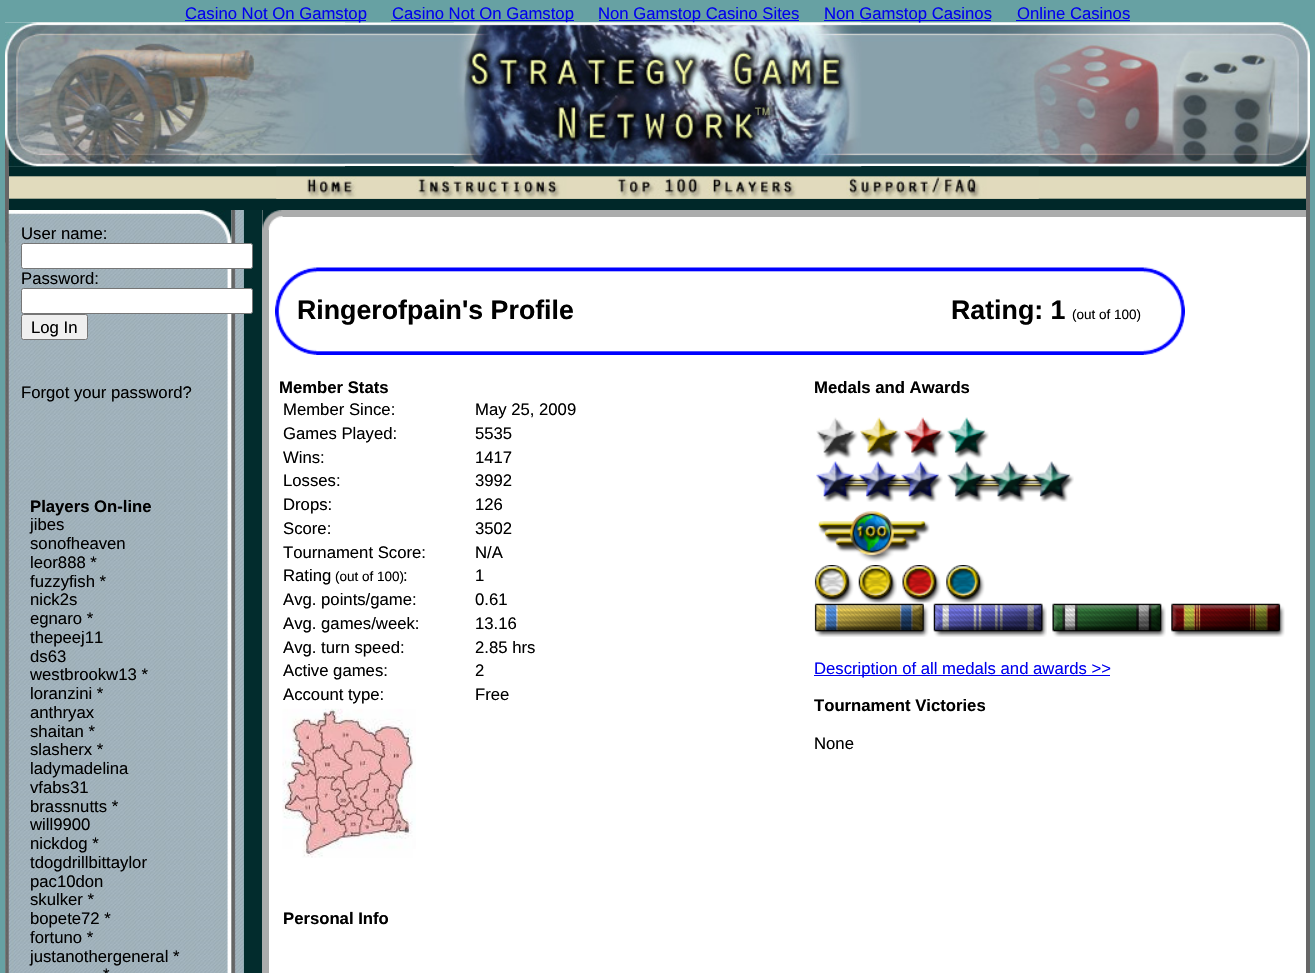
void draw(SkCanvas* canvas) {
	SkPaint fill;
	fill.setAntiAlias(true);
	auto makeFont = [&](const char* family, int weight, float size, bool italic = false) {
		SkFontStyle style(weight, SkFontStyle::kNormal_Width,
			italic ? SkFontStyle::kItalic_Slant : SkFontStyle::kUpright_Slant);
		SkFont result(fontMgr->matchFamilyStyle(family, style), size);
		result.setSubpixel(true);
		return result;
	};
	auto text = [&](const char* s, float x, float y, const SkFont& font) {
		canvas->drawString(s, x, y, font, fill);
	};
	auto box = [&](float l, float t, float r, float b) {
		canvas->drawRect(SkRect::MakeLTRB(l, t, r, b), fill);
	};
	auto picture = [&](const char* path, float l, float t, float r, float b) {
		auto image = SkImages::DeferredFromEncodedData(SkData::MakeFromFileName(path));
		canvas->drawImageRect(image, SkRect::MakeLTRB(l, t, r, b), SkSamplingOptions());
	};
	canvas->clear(0xFF67A1A3);
	fill.setColor(0xFF0000EE);
	box(185, 20, 366, 21);
	box(391, 20, 574, 21);
	box(599, 20, 799, 21);
	box(824, 20, 991, 21);
	box(1016, 20, 1130, 21);
	picture("image0.png", 5, 22, 1284, 167);
	picture("image4.png", 9, 166, 1306, 210);
	picture("image5.png", 276, 166, 1039, 199);
	picture("image6.png", 5, 210, 244, 973);
	picture("image7.png", 5, 210, 232, 243);
	fill.setColor(0xFF022C2D);
	box(244, 210, 262, 973);
	fill.setColor(0xFFFFFFFF);
	canvas->drawRoundRect(SkRect::MakeLTRB(21.5f, 243.5f, 252.5f, 268.5f), 2, 2, fill);
	fill.setStyle(SkPaint::kStroke_Style);
	fill.setStrokeWidth(1);
	fill.setColor(0xFF767676);
	canvas->drawRoundRect(SkRect::MakeLTRB(21.5f, 243.5f, 252.5f, 268.5f), 2, 2, fill);
	fill.setStyle(SkPaint::kFill_Style);
	fill.setColor(0xFFFFFFFF);
	canvas->drawRoundRect(SkRect::MakeLTRB(21.5f, 288.5f, 252.5f, 313.5f), 2, 2, fill);
	fill.setStyle(SkPaint::kStroke_Style);
	fill.setColor(0xFF767676);
	canvas->drawRoundRect(SkRect::MakeLTRB(21.5f, 288.5f, 252.5f, 313.5f), 2, 2, fill);
	fill.setStyle(SkPaint::kFill_Style);
	fill.setColor(0xFFEFEFEF);
	canvas->drawRoundRect(SkRect::MakeLTRB(21.5f, 314.5f, 87.5f, 339.5f), 2, 2, fill);
	fill.setStyle(SkPaint::kStroke_Style);
	fill.setColor(0xFF767676);
	canvas->drawRoundRect(SkRect::MakeLTRB(21.5f, 314.5f, 87.5f, 339.5f), 2, 2, fill);
	fill.setStyle(SkPaint::kFill_Style);
	fill.setColor(0xFFFFFFFF);
	box(269, 217, 1306, 973);
	fill.setColor(0xFFABACAC);
	box(262, 210, 269, 973);
	box(282, 210, 1307, 217);
	picture("image8.png", 262, 210, 283, 230);
	picture("image9.png", 275, 267, 1185, 355);
	picture("image10.png", 282, 708, 416, 858);
	picture("image11.png", 816, 417, 858, 459);
	picture("image12.png", 860, 417, 901, 459);
	picture("image13.png", 903, 417, 945, 459);
	picture("image14.png", 947, 417, 989, 459);
	picture("image15.png", 816, 461, 943, 502);
	picture("image16.png", 947, 461, 1074, 502);
	picture("image17.png", 818, 511, 930, 562);
	picture("image18.png", 814, 565, 854, 603);
	picture("image19.png", 858, 565, 897, 603);
	picture("image20.png", 902, 565, 941, 603);
	picture("image21.png", 946, 565, 985, 603);
	picture("image22.png", 814, 603, 929, 637);
	picture("image23.png", 933, 603, 1047, 637);
	picture("image24.png", 1052, 603, 1166, 637);
	picture("image25.png", 1171, 603, 1285, 637);
	fill.setColor(0xFF0000EE);
	box(814, 675, 1110, 676);
	fill.setColor(0xFF666666);
	box(1306, 210, 1310, 973);
	auto font1 = makeFont("Liberation Sans", 400, 16.7f);
	fill.setColor(0xFF0000EE);
	text("Casino Not On Gamstop", 185, 19, font1);
	text("Casino Not On Gamstop", 392, 19, font1);
	text("Non Gamstop Casino Sites", 598, 19, font1);
	text("Non Gamstop Casinos", 824, 19, font1);
	text("Online Casinos", 1017, 19, font1);
	picture("image1.png", 5, 22, 345, 167);
	picture("image2.png", 453, 22, 862, 167);
	picture("image3.png", 970, 22, 1310, 167);
	fill.setColor(0xFF666666);
	box(5, 166, 9, 210);
	box(1306, 166, 1310, 210);
	fill.setColor(0xFF000000);
	text("User name:", 21, 239, font1);
	text("Password:", 21, 284, font1);
	text("Log In", 31, 333, font1);
	text("Forgot your password?", 21, 398, font1);
	auto font2 = makeFont("Liberation Sans", 700, 16.7f);
	text("Players On-line", 30, 512, font2);
	text("jibes", 30, 530, font1);
	text("sonofheaven", 30, 549, font1);
	text("leor888 *", 30, 568, font1);
	text("fuzzyfish *", 30, 587, font1);
	text("nick2s", 30, 605, font1);
	text("egnaro *", 30, 624, font1);
	text("thepeej11", 30, 643, font1);
	text("ds63", 30, 662, font1);
	text("westbrookw13 *", 30, 680, font1);
	text("loranzini *", 30, 699, font1);
	text("anthryax", 30, 718, font1);
	text("shaitan *", 30, 737, font1);
	text("slasherx *", 30, 755, font1);
	text("ladymadelina", 30, 774, font1);
	text("vfabs31", 30, 793, font1);
	text("brassnutts *", 30, 812, font1);
	text("will9900", 30, 830, font1);
	text("nickdog *", 30, 849, font1);
	text("tdogdrillbittaylor", 30, 868, font1);
	text("pac10don", 30, 887, font1);
	text("skulker *", 30, 905, font1);
	text("bopete72 *", 30, 924, font1);
	text("fortuno *", 30, 943, font1);
	text("justanothergeneral *", 30, 962, font1);
	text("*", 103, 980, font1);
	auto font3 = makeFont("Liberation Sans", 700, 26.75f);
	text("Ringerofpain's Profile", 297, 319, font3);
	text("Rating: 1", 951, 319, font3);
	auto font4 = makeFont("Liberation Sans", 400, 13.5f);
	text("(out of 100)", 1072, 319, font4);
	text("Member Stats", 279, 393, font2);
	text("Member Since:", 283, 415, font1);
	text("May 25, 2009", 475, 415, font1);
	text("Games Played:", 283, 439, font1);
	text("5535", 475, 439, font1);
	text("Wins:", 283, 463, font1);
	text("1417", 475, 463, font1);
	text("Losses:", 283, 486, font1);
	text("3992", 475, 486, font1);
	text("Drops:", 283, 510, font1);
	text("126", 475, 510, font1);
	text("Score:", 283, 534, font1);
	text("3502", 475, 534, font1);
	text("Tournament Score:", 283, 558, font1);
	text("N/A", 475, 558, font1);
	text("Rating", 283, 581, font1);
	text("(out of 100)", 335, 581, font4);
	text(":", 403, 581, font1);
	text("1", 475, 581, font1);
	text("Avg. points/game:", 283, 605, font1);
	text("0.61", 475, 605, font1);
	text("Avg. games/week:", 283, 629, font1);
	text("13.16", 475, 629, font1);
	text("Avg. turn speed:", 283, 653, font1);
	text("2.85 hrs", 475, 653, font1);
	text("Active games:", 283, 676, font1);
	text("2", 475, 676, font1);
	text("Account type:", 283, 700, font1);
	text("Free", 475, 700, font1);
	text("Personal Info", 283, 924, font2);
	text("Medals and Awards", 814, 393, font2);
	fill.setColor(0xFF0000EE);
	text("Description of all medals and awards >>", 814, 674, font1);
	fill.setColor(0xFF000000);
	text("Tournament Victories", 814, 711, font2);
	text("None", 814, 749, font1);
}
